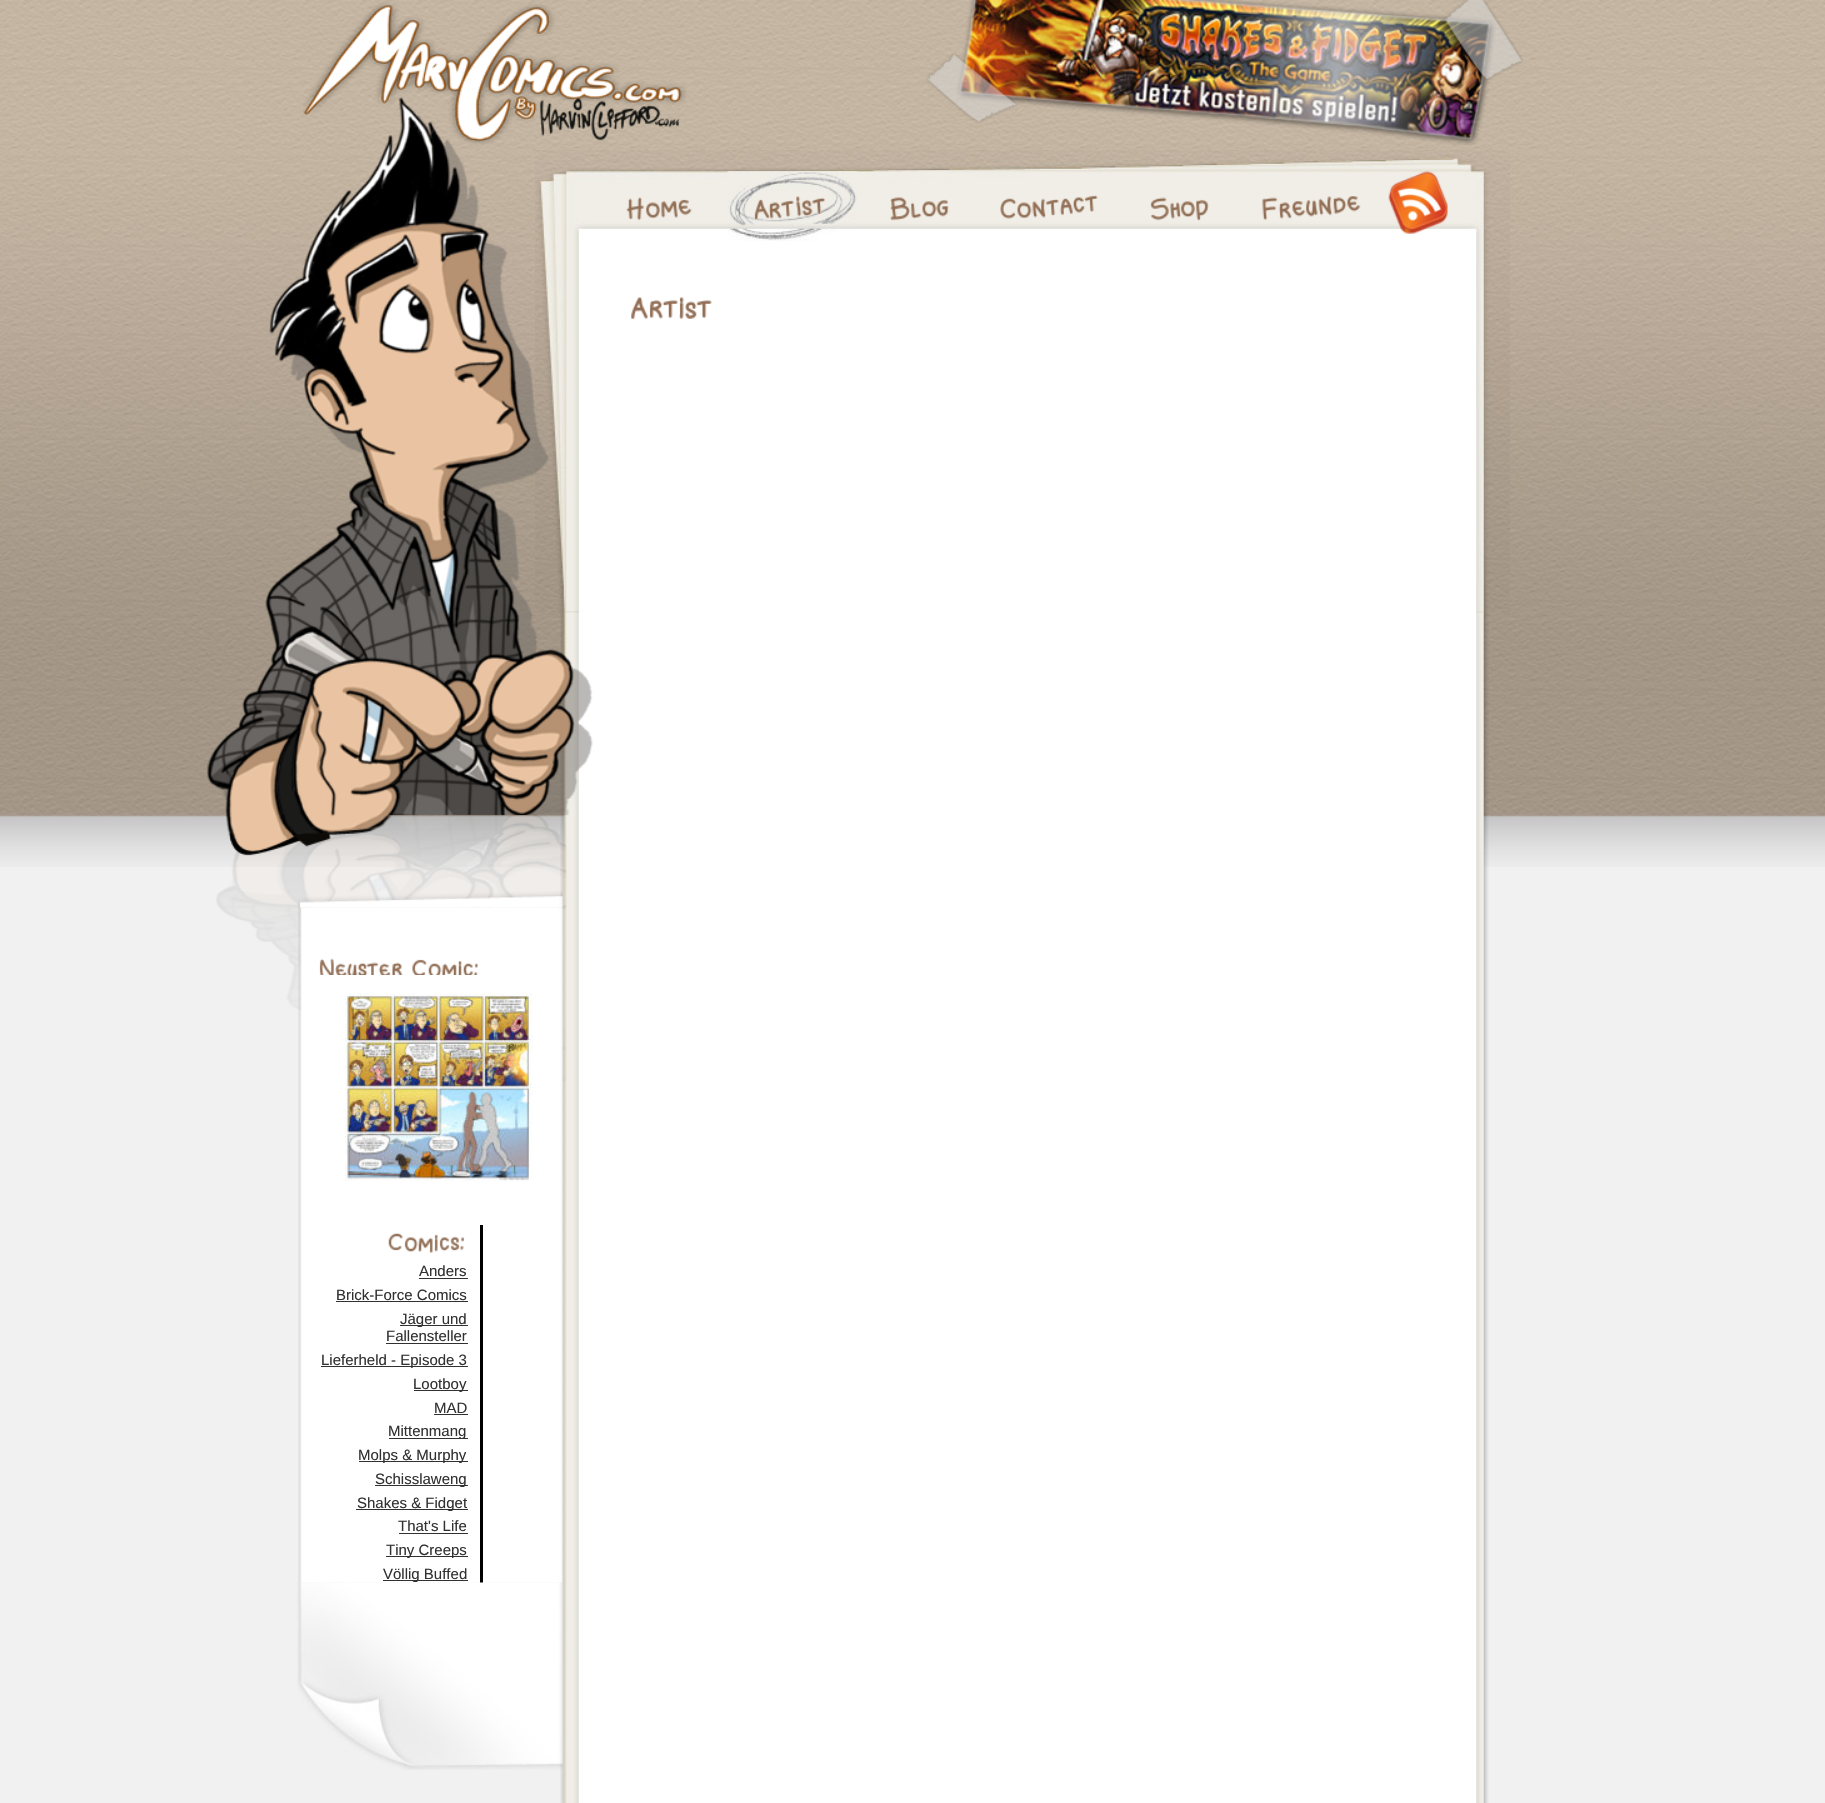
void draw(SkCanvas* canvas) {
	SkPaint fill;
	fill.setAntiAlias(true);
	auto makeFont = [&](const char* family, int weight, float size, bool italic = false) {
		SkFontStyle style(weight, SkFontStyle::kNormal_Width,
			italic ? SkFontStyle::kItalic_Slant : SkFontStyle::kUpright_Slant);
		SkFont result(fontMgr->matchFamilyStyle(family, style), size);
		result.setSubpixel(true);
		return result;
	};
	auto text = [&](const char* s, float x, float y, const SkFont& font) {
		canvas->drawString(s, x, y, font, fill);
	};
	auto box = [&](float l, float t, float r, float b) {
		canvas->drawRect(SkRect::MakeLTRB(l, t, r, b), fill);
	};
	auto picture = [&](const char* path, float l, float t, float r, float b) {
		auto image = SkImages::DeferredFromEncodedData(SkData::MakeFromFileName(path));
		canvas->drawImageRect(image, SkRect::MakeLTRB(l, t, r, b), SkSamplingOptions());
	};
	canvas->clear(0xFFF1F1F1);
	picture("image0.png", 0, 0, 1825, 867);
	picture("image1.png", 303, 2, 687, 145);
	picture("image2.png", 926, 0, 1523, 145);
	picture("image4.png", 560, 612, 1489, 1803);
	picture("image5.png", 535, 150, 1510, 613);
	picture("image3.png", 207, 97, 593, 1082);
	picture("image6.png", 626, 197, 692, 221);
	picture("image7.png", 727, 171, 858, 241);
	picture("image8.png", 754, 196, 826, 221);
	picture("image9.png", 890, 197, 949, 221);
	picture("image10.png", 1000, 195, 1098, 219);
	picture("image11.png", 1150, 197, 1209, 221);
	picture("image12.png", 1262, 196, 1361, 221);
	picture("image13.png", 1388, 171, 1448, 234);
	picture("image14.png", 631, 297, 712, 319);
	picture("image15.png", 297, 891, 563, 908);
	picture("image16.png", 298, 907, 563, 1583);
	picture("image17.png", 319, 958, 478, 975);
	picture("image18.png", 345, 993, 533, 1181);
	fill.setColor(0xFF000000);
	box(480, 1225, 483, 1583);
	picture("image19.png", 388, 1233, 465, 1253);
	fill.setColor(0xFF313131);
	box(419, 1278, 468, 1279);
	box(336, 1301, 468, 1302);
	box(400, 1325, 468, 1326);
	box(386, 1343, 468, 1344);
	box(321, 1366, 468, 1367);
	box(414, 1390, 468, 1391);
	box(434, 1414, 468, 1415);
	box(389, 1438, 468, 1439);
	box(359, 1461, 468, 1462);
	box(375, 1485, 468, 1486);
	box(356, 1509, 468, 1510);
	box(399, 1533, 468, 1534);
	box(386, 1556, 468, 1557);
	box(383, 1580, 468, 1581);
	picture("image20.png", 297, 1582, 563, 1770);
	auto font1 = makeFont("Liberation Sans", 400, 15);
	text("Anders", 419, 1276, font1);
	text("Brick-Force Comics", 336, 1300, font1);
	text("Jäger und", 400, 1324, font1);
	text("Fallensteller", 386, 1341, font1);
	text("Lieferheld - Episode 3", 321, 1365, font1);
	text("Lootboy", 413, 1389, font1);
	text("MAD", 434, 1413, font1);
	text("Mittenmang", 388, 1436, font1);
	text("Molps & Murphy", 358, 1460, font1);
	text("Schisslaweng", 375, 1484, font1);
	text("Shakes & Fidget", 357, 1508, font1);
	text("That's Life", 398, 1531, font1);
	text("Tiny Creeps", 386, 1555, font1);
	text("Völlig Buffed", 383, 1579, font1);
}
